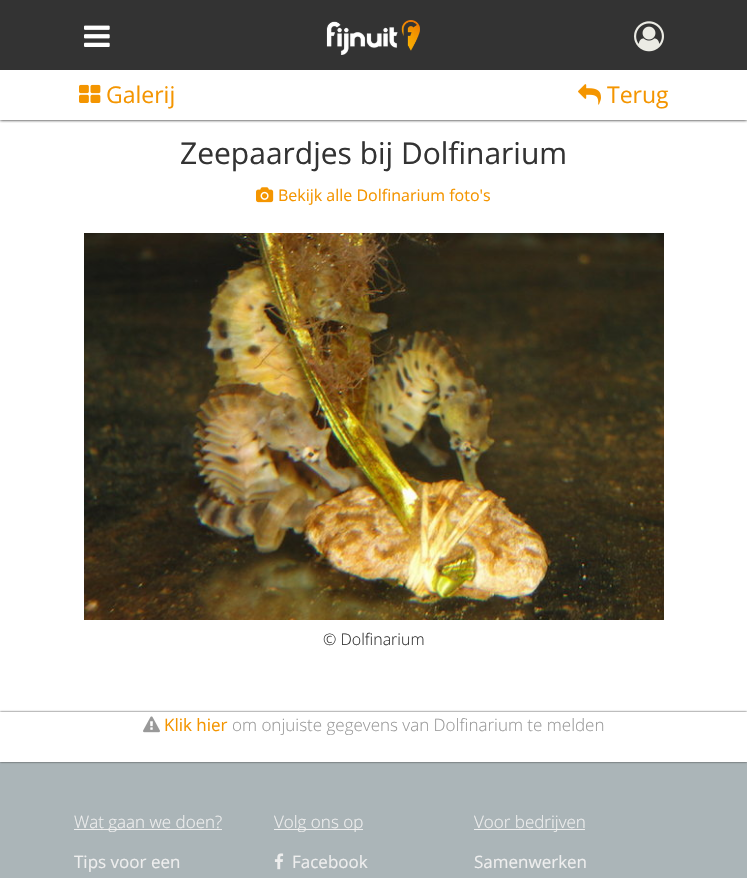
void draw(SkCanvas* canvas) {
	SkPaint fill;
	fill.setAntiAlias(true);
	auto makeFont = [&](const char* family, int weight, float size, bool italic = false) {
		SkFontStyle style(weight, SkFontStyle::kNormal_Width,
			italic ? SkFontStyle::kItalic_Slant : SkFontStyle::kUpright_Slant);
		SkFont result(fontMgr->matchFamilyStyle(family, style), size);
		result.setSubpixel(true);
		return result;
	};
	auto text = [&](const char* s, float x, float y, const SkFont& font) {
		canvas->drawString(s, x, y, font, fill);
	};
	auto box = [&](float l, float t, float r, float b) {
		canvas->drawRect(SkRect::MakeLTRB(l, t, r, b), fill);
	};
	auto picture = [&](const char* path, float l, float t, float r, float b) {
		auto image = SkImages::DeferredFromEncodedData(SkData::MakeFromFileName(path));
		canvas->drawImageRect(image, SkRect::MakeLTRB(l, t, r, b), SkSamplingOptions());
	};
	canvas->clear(0xFFFFFFFF);
	canvas->save();
	canvas->clipRect(SkRect::MakeLTRB(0, 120, 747, 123));
	fill.setColor(0xFF000000);
	fill.setMaskFilter(SkMaskFilter::MakeBlur(kNormal_SkBlurStyle, 1.5f));
	canvas->drawRect(SkRect::MakeLTRB(0, 70, 747, 120), fill);
	fill.setMaskFilter(nullptr);
	canvas->restore();
	fill.setColor(0xFF333333);
	box(0, 0, 747, 70);
	picture("image0.png", 84, 25, 110, 47);
	picture("image1.png", 326, 20, 420, 55);
	picture("image2.png", 634, 21, 664, 52);
	picture("image3.png", 79, 84, 101, 103);
	picture("image4.png", 578, 84, 601, 105);
	picture("image5.png", 256, 187, 274, 203);
	picture("image6.png", 84, 233, 664, 620);
	fill.setColor(0xFFABB5B8);
	box(0, 762, 747, 878);
	canvas->save();
	canvas->clipPath(SkPathBuilder(SkPathFillType::kEvenOdd).moveTo(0, 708).lineTo(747, 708).lineTo(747, 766).lineTo(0, 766).close().moveTo(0, 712).lineTo(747, 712).lineTo(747, 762).lineTo(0, 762).close().detach(), true);
	fill.setColor(0xFF333333);
	fill.setMaskFilter(SkMaskFilter::MakeBlur(kNormal_SkBlurStyle, 1));
	canvas->drawRect(SkRect::MakeLTRB(0, 712, 747, 762), fill);
	fill.setMaskFilter(nullptr);
	canvas->restore();
	picture("image7.png", 143, 716, 160, 733);
	fill.setColor(0xFFEEEEEE);
	box(74, 829, 222, 830);
	box(274, 829, 363, 830);
	picture("image8.png", 274, 853, 284, 870);
	box(474, 829, 585, 830);
	auto font1 = makeFont("Open Sans", 400, 23);
	fill.setColor(0xFFF49500);
	text("Galerij", 106, 103, font1);
	text("Terug", 607, 103, font1);
	auto font2 = makeFont("Open Sans", 400, 30);
	fill.setColor(0xFF333333);
	text("Zeepaardjes bij Dolfinarium", 180, 164, font2);
	auto font3 = makeFont("Open Sans", 400, 16);
	fill.setColor(0xFFF49500);
	text("Bekijk alle Dolfinarium foto's", 278, 201, font3);
	auto font4 = makeFont("Open Sans", 300, 16);
	fill.setColor(0xFF333333);
	text("© Dolfinarium", 323, 645, font4);
	auto font5 = makeFont("Open Sans", 400, 17);
	fill.setColor(0xFFF49500);
	text("Klik hier", 164, 731, font5);
	auto font6 = makeFont("Open Sans", 300, 17);
	fill.setColor(0xFF999999);
	text("om onjuiste gegevens van Dolfinarium te melden", 232, 731, font6);
	fill.setColor(0xFFEEEEEE);
	text("Wat gaan we doen?", 74, 828, font6);
	text("Tips voor een", 74, 868, font5);
	text("Volg ons op", 274, 828, font6);
	text("Facebook", 292, 868, font5);
	text("Voor bedrijven", 474, 828, font6);
	text("Samenwerken", 474, 868, font5);
}
